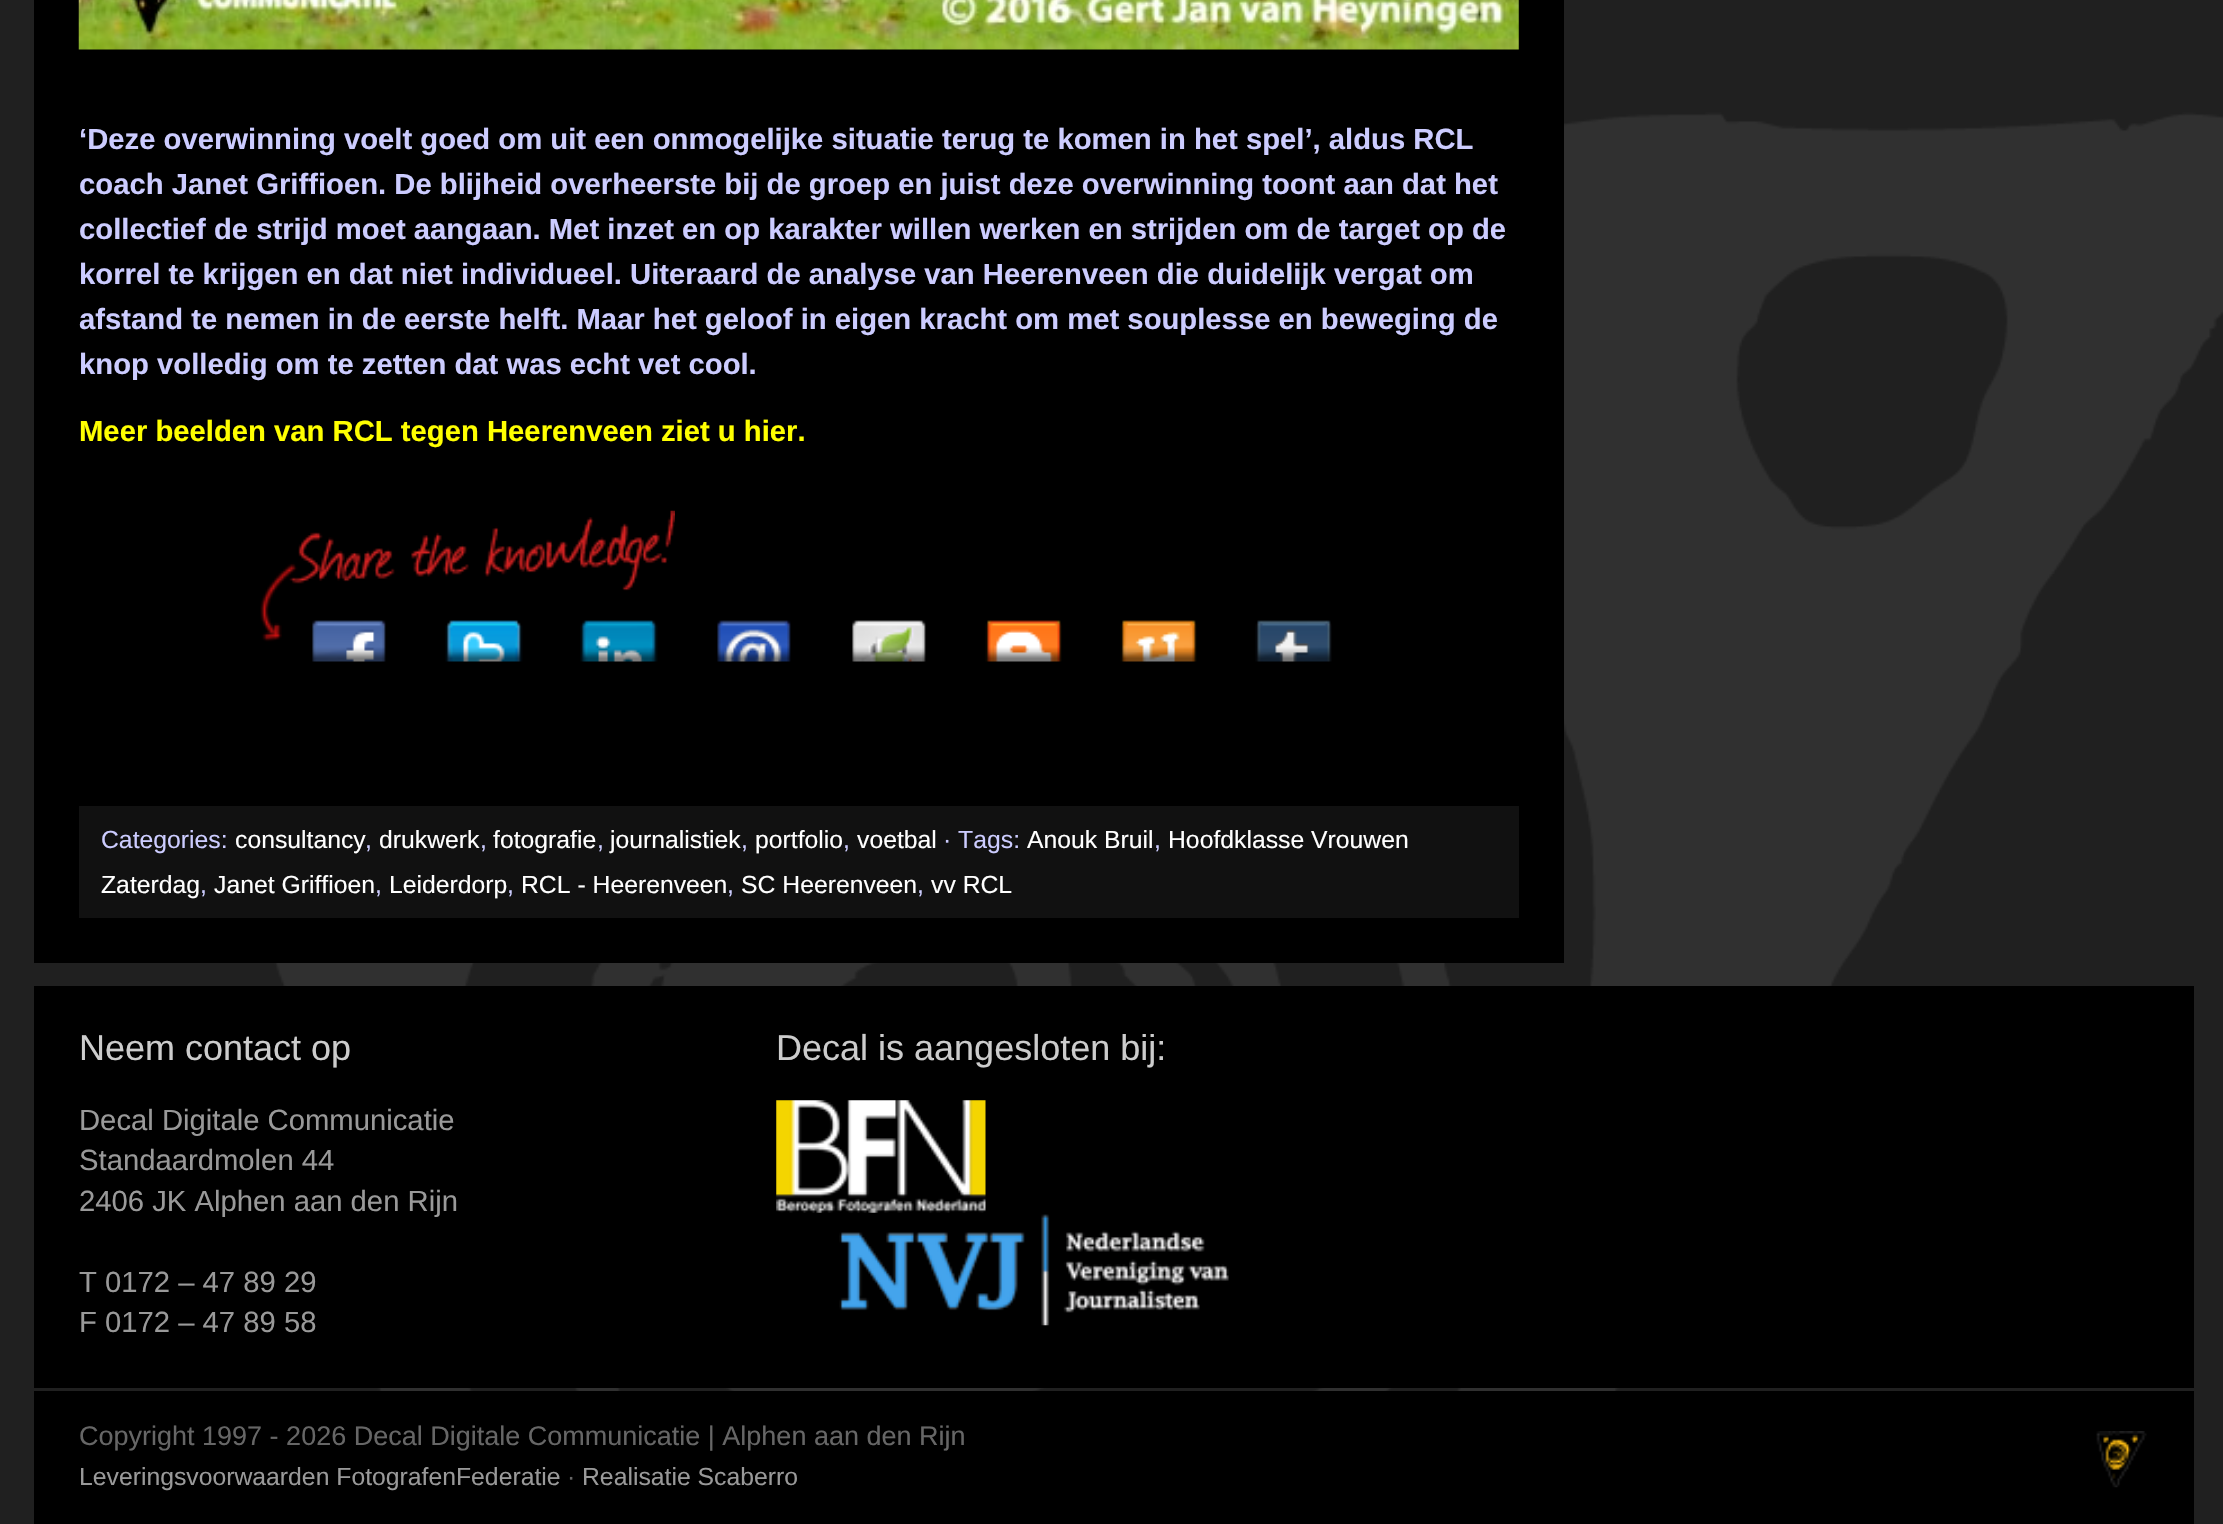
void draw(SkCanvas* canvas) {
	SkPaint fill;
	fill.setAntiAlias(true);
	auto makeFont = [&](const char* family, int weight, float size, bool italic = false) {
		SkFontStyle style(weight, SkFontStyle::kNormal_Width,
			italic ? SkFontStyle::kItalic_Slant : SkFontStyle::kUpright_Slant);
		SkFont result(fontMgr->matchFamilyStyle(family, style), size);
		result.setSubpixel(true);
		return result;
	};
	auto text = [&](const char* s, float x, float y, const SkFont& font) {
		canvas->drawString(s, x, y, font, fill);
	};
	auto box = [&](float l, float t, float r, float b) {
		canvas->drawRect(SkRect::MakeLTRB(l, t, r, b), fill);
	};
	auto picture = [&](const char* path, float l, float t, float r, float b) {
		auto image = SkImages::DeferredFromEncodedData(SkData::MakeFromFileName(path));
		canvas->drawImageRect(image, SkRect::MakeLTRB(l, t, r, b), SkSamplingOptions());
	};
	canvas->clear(0xFF202020);
	picture("image0.png", 274, 112, 2223, 1391);
	fill.setColor(0xFF000000);
	box(34, 0, 1564, 963);
	picture("image1.png", 78, 0, 1519, 50);
	picture("image2.png", 260, 510, 675, 642);
	picture("image3.png", 312, 620, 386, 662);
	picture("image4.png", 445, 620, 523, 662);
	picture("image5.png", 580, 620, 658, 662);
	picture("image6.png", 717, 620, 791, 662);
	picture("image7.png", 852, 620, 926, 662);
	picture("image8.png", 985, 620, 1062, 662);
	picture("image9.png", 1120, 620, 1197, 662);
	picture("image10.png", 1255, 620, 1332, 662);
	fill.setColor(0xFF111111);
	box(79, 806, 1519, 918);
	fill.setColor(0xFF000000);
	box(34, 986, 2194, 1388);
	picture("image11.png", 776, 1100, 986, 1213);
	picture("image12.png", 839, 1214, 1229, 1326);
	box(34, 1391, 2194, 1524);
	picture("image13.png", 2096, 1431, 2147, 1488);
	auto font1 = makeFont("Liberation Sans", 700, 29.25f);
	fill.setColor(0xFFCCCCFF);
	text("‘Deze overwinning voelt goed om uit een onmogelijke situatie terug te komen in het spel’, aldus RCL", 79, 149, font1);
	text("coach Janet Griffioen. De blijheid overheerste bij de groep en juist deze overwinning toont aan dat het", 79, 194, font1);
	text("collectief de strijd moet aangaan. Met inzet en op karakter willen werken en strijden om de target op de", 79, 239, font1);
	text("korrel te krijgen en dat niet individueel. Uiteraard de analyse van Heerenveen die duidelijk vergat om", 79, 284, font1);
	text("afstand te nemen in de eerste helft. Maar het geloof in eigen kracht om met souplesse en beweging de", 79, 329, font1);
	text("knop volledig om te zetten dat was echt vet cool.", 79, 374, font1);
	fill.setColor(0xFFFFFF00);
	text("Meer beelden van RCL tegen Heerenveen ziet u hier.", 79, 441, font1);
	auto font2 = makeFont("Liberation Sans", 400, 24.75f);
	fill.setColor(0xFFCCCCFF);
	text("Categories:", 101, 848, font2);
	fill.setColor(0xFFFFFFFF);
	text("consultancy", 235, 848, font2);
	fill.setColor(0xFFCCCCFF);
	text(",", 365, 848, font2);
	fill.setColor(0xFFFFFFFF);
	text("drukwerk", 379, 848, font2);
	fill.setColor(0xFFCCCCFF);
	text(",", 480, 848, font2);
	fill.setColor(0xFFFFFFFF);
	text("fotografie", 493, 848, font2);
	fill.setColor(0xFFCCCCFF);
	text(",", 597, 848, font2);
	fill.setColor(0xFFFFFFFF);
	text("journalistiek", 610, 848, font2);
	fill.setColor(0xFFCCCCFF);
	text(",", 741, 848, font2);
	fill.setColor(0xFFFFFFFF);
	text("portfolio", 755, 848, font2);
	fill.setColor(0xFFCCCCFF);
	text(",", 843, 848, font2);
	fill.setColor(0xFFFFFFFF);
	text("voetbal", 857, 848, font2);
	fill.setColor(0xFFCCCCFF);
	text("· Tags:", 943, 848, font2);
	fill.setColor(0xFFFFFFFF);
	text("Anouk Bruil", 1027, 848, font2);
	fill.setColor(0xFFCCCCFF);
	text(",", 1154, 848, font2);
	fill.setColor(0xFFFFFFFF);
	text("Hoofdklasse Vrouwen", 1168, 848, font2);
	text("Zaterdag", 101, 893, font2);
	fill.setColor(0xFFCCCCFF);
	text(",", 200, 893, font2);
	fill.setColor(0xFFFFFFFF);
	text("Janet Griffioen", 214, 893, font2);
	fill.setColor(0xFFCCCCFF);
	text(",", 375, 893, font2);
	fill.setColor(0xFFFFFFFF);
	text("Leiderdorp", 389, 893, font2);
	fill.setColor(0xFFCCCCFF);
	text(",", 507, 893, font2);
	fill.setColor(0xFFFFFFFF);
	text("RCL - Heerenveen", 521, 893, font2);
	fill.setColor(0xFFCCCCFF);
	text(",", 727, 893, font2);
	fill.setColor(0xFFFFFFFF);
	text("SC Heerenveen", 741, 893, font2);
	fill.setColor(0xFFCCCCFF);
	text(",", 917, 893, font2);
	fill.setColor(0xFFFFFFFF);
	text("vv RCL", 931, 893, font2);
	auto font3 = makeFont("Liberation Sans", 400, 36);
	fill.setColor(0xFFCCCCCC);
	text("Neem contact op", 79, 1060, font3);
	auto font4 = makeFont("Liberation Sans", 400, 29.25f);
	fill.setColor(0xFF999999);
	text("Decal Digitale Communicatie", 79, 1130, font4);
	text("Standaardmolen 44", 79, 1170, font4);
	text("2406 JK Alphen aan den Rijn", 79, 1211, font4);
	text("T 0172 – 47 89 29", 79, 1292, font4);
	text("F 0172 – 47 89 58", 79, 1332, font4);
	fill.setColor(0xFFCCCCCC);
	text("Decal is aangesloten bij:", 776, 1060, font3);
	auto font5 = makeFont("Liberation Sans", 400, 27);
	fill.setColor(0xFF666666);
	text("Copyright 1997 - 2026 Decal Digitale Communicatie | Alphen aan den Rijn", 79, 1445, font5);
	fill.setColor(0xFF999999);
	text("Leveringsvoorwaarden FotografenFederatie", 79, 1485, font2);
	fill.setColor(0xFF666666);
	text("·", 567, 1485, font2);
	fill.setColor(0xFF999999);
	text("Realisatie Scaberro", 582, 1485, font2);
}
